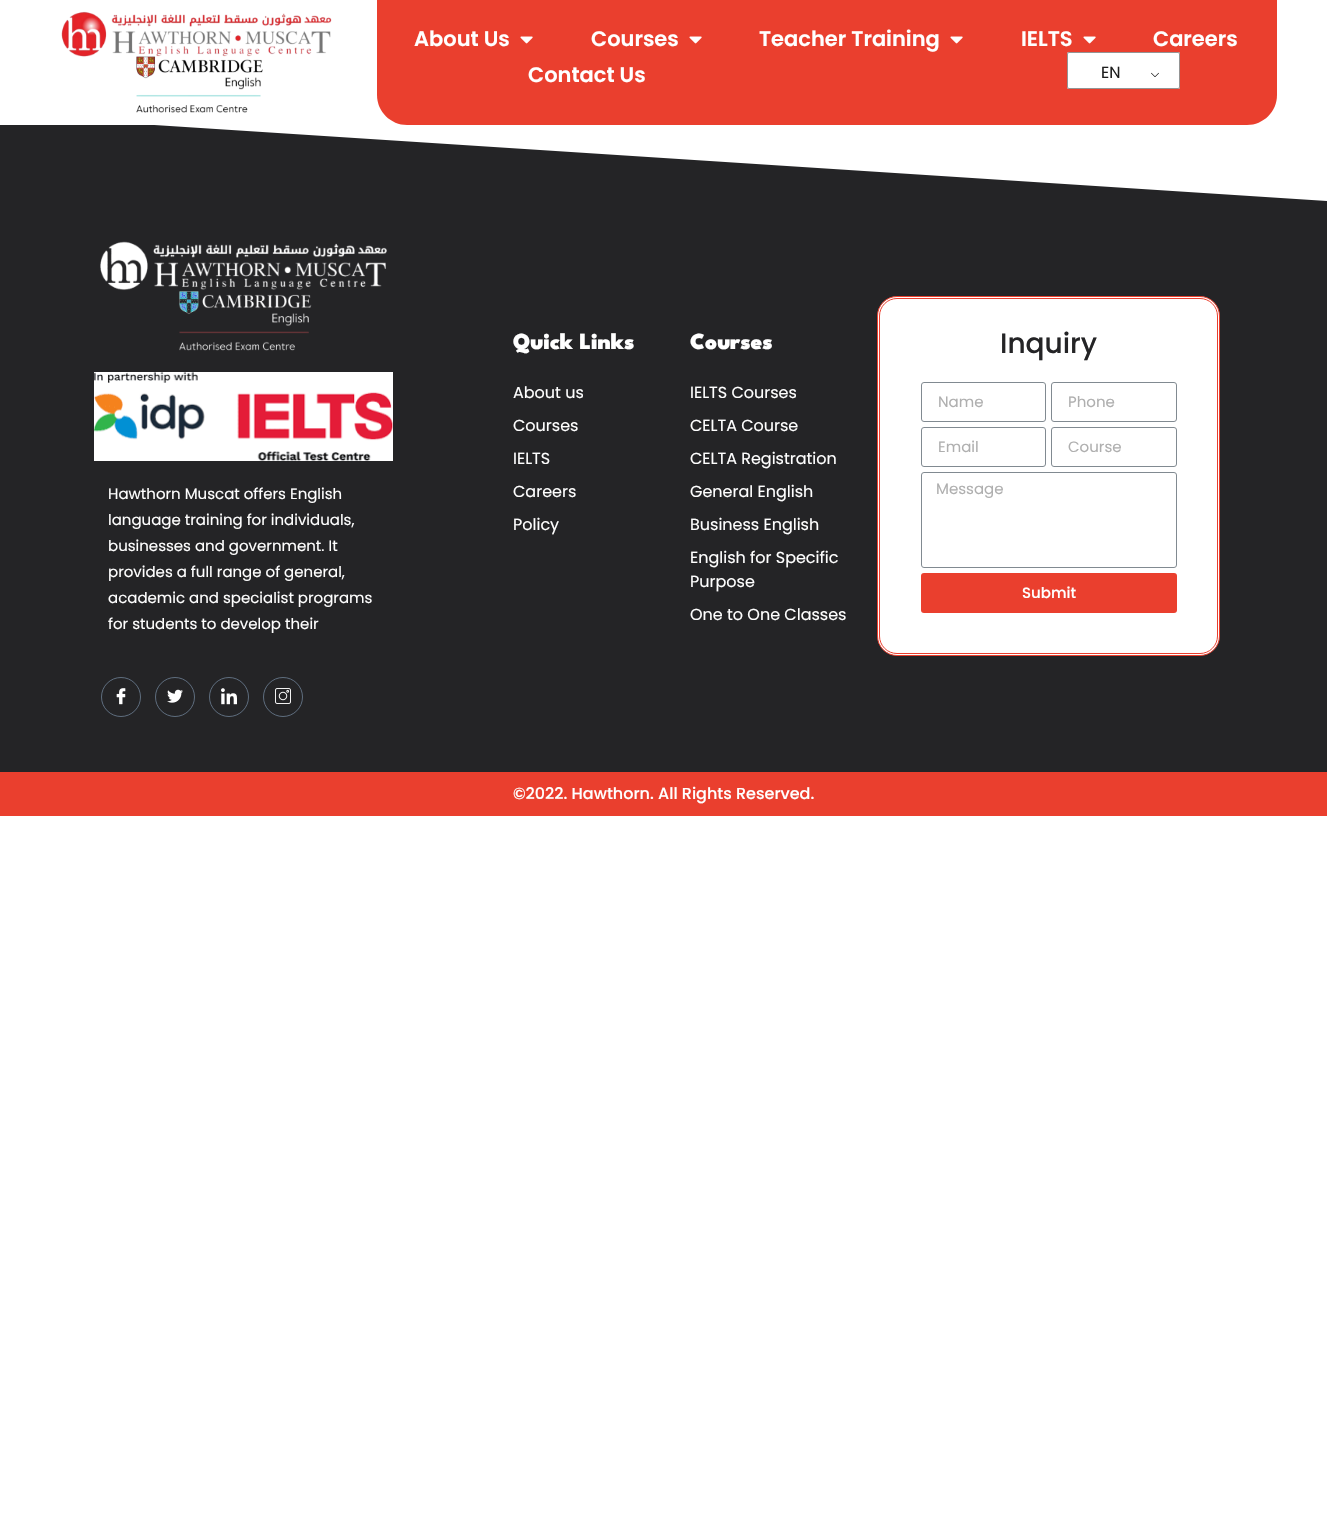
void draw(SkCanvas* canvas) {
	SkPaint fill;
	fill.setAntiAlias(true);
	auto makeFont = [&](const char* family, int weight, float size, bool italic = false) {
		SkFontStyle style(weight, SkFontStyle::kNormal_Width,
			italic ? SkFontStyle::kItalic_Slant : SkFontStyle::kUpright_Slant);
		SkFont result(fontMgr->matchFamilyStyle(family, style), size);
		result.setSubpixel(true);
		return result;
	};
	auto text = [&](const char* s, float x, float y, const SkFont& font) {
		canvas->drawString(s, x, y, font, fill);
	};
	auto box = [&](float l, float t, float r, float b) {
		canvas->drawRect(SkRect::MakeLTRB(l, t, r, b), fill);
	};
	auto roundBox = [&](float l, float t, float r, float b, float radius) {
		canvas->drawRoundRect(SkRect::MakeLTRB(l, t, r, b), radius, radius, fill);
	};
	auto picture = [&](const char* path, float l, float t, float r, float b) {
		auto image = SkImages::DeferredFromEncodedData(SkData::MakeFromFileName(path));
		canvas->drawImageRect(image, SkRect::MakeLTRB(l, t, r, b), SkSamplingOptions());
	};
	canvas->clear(0xFFFFFFFF);
	fill.setColor(0xFF242426);
	box(0, 125, 1327, 772);
	fill.setColor(0xFFFFFFFF);
	canvas->drawPath(SkPathBuilder().moveTo(0, 115).lineTo(0, 109).lineTo(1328, 109).lineTo(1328, 201).close().detach(), fill);
	picture("image0.png", 61, 11, 332, 113);
	fill.setColor(0xFFEA3F2E);
	canvas->drawPath(SkPathBuilder().moveTo(377, 0).lineTo(1277, 0).lineTo(1277, 95).cubicTo(1277, 111.5f, 1263.5f, 125, 1247, 125).lineTo(407, 125).cubicTo(390.5f, 125, 377, 111.5f, 377, 95).close().detach(), fill);
	picture("image1.png", 520, 36, 533, 44);
	picture("image1.png", 689, 36, 702, 44);
	picture("image1.png", 950, 36, 963, 44);
	picture("image1.png", 1083, 36, 1096, 44);
	fill.setColor(0xFFFFFFFF);
	roundBox(1067, 52, 1180, 89, 2);
	picture("image2.png", 1151, 72, 1159, 77);
	fill.setStyle(SkPaint::kStroke_Style);
	fill.setStrokeWidth(1);
	fill.setColor(0xFF949494);
	canvas->drawRoundRect(SkRect::MakeLTRB(1067.5f, 52.5f, 1179.5f, 88.5f), 1.5f, 1.5f, fill);
	picture("image3.png", 100, 241, 387, 351);
	picture("image4.png", 94, 372, 393, 461);
	fill.setColor(0xFF5E6D7E);
	canvas->drawCircle(121, 697, 19.5f, fill);
	picture("image5.png", 116, 688, 126, 705);
	canvas->drawCircle(175, 697, 19.5f, fill);
	picture("image6.png", 167, 689, 183, 703);
	canvas->drawCircle(229, 697, 19.5f, fill);
	picture("image7.png", 221, 688, 237, 705);
	canvas->drawCircle(283, 697, 19.5f, fill);
	picture("image8.png", 275, 688, 291, 704);
	fill.setStyle(SkPaint::kFill_Style);
	fill.setColor(0xFFFFFFFF);
	canvas->drawRoundRect(SkRect::MakeLTRB(877.5f, 296.5f, 1219.5f, 655.5f), 19.5f, 19.5f, fill);
	fill.setStyle(SkPaint::kStroke_Style);
	fill.setColor(0xFFEA3F2E);
	canvas->drawRoundRect(SkRect::MakeLTRB(877.5f, 296.5f, 1219.5f, 655.5f), 19.5f, 19.5f, fill);
	canvas->drawRoundRect(SkRect::MakeLTRB(879.5f, 298.5f, 1217.5f, 653.5f), 17.5f, 17.5f, fill);
	fill.setColor(0xFF818A91);
	canvas->drawRoundRect(SkRect::MakeLTRB(921.5f, 382.5f, 1045.5f, 421.5f), 2.5f, 2.5f, fill);
	canvas->drawRoundRect(SkRect::MakeLTRB(1051.5f, 382.5f, 1176.5f, 421.5f), 2.5f, 2.5f, fill);
	canvas->drawRoundRect(SkRect::MakeLTRB(921.5f, 427.5f, 1045.5f, 466.5f), 2.5f, 2.5f, fill);
	canvas->drawRoundRect(SkRect::MakeLTRB(1051.5f, 427.5f, 1176.5f, 466.5f), 2.5f, 2.5f, fill);
	canvas->drawRoundRect(SkRect::MakeLTRB(921.5f, 472.5f, 1176.5f, 567.5f), 2.5f, 2.5f, fill);
	fill.setStyle(SkPaint::kFill_Style);
	fill.setColor(0xFFEA3F2E);
	roundBox(921, 573, 1177, 613, 3);
	box(0, 772, 1327, 816);
	auto font1 = makeFont("Poppins", 600, 21);
	fill.setColor(0xFFFFFFFF);
	text("About Us", 414, 46, font1);
	text("Courses", 591, 46, font1);
	text("Teacher Training", 759, 46, font1);
	text("IELTS", 1021, 46, font1);
	text("Careers", 1153, 46, font1);
	text("Contact Us", 528, 82, font1);
	auto font2 = makeFont("Poppins", 400, 16);
	fill.setColor(0xFF1E1E1E);
	text("EN", 1101, 78, font2);
	auto font3 = makeFont("Poppins", 400, 15);
	fill.setColor(0xFFFFFFFF);
	text("Hawthorn Muscat offers English", 108, 499, font3);
	text("language training for individuals,", 108, 525, font3);
	text("businesses and government. It", 108, 551, font3);
	text("provides a full range of general,", 108, 577, font3);
	text("academic and specialist programs", 108, 603, font3);
	text("for students to develop their", 108, 629, font3);
	auto font4 = makeFont("League Spartan", 900, 23);
	text("Quick Links", 513, 349, font4);
	text("About us", 513, 398, font2);
	text("Courses", 513, 431, font2);
	text("IELTS", 513, 464, font2);
	text("Careers", 513, 497, font2);
	text("Policy", 513, 530, font2);
	text("Courses", 690, 349, font4);
	text("IELTS Courses", 690, 398, font2);
	text("CELTA Course", 690, 431, font2);
	text("CELTA Registration", 690, 464, font2);
	text("General English", 690, 497, font2);
	text("Business English", 690, 530, font2);
	text("English for Specific", 690, 563, font2);
	text("Purpose", 690, 587, font2);
	text("One to One Classes", 690, 620, font2);
	auto font5 = makeFont("Poppins", 500, 28);
	fill.setColor(0xFF242426);
	text("Inquiry", 1000, 353, font5);
	fill.setColor(0xFFAFAFAF);
	text("Name", 938, 407, font3);
	text("Phone", 1068, 407, font3);
	text("Email", 938, 452, font3);
	text("Course", 1068, 452, font3);
	text("Message", 936, 494, font3);
	auto font6 = makeFont("Poppins", 500, 15);
	fill.setColor(0xFFFFFFFF);
	text("Submit", 1022, 598, font6);
	auto font7 = makeFont("Poppins", 500, 16);
	text("©2022. Hawthorn. All Rights Reserved.", 513, 799, font7);
}
